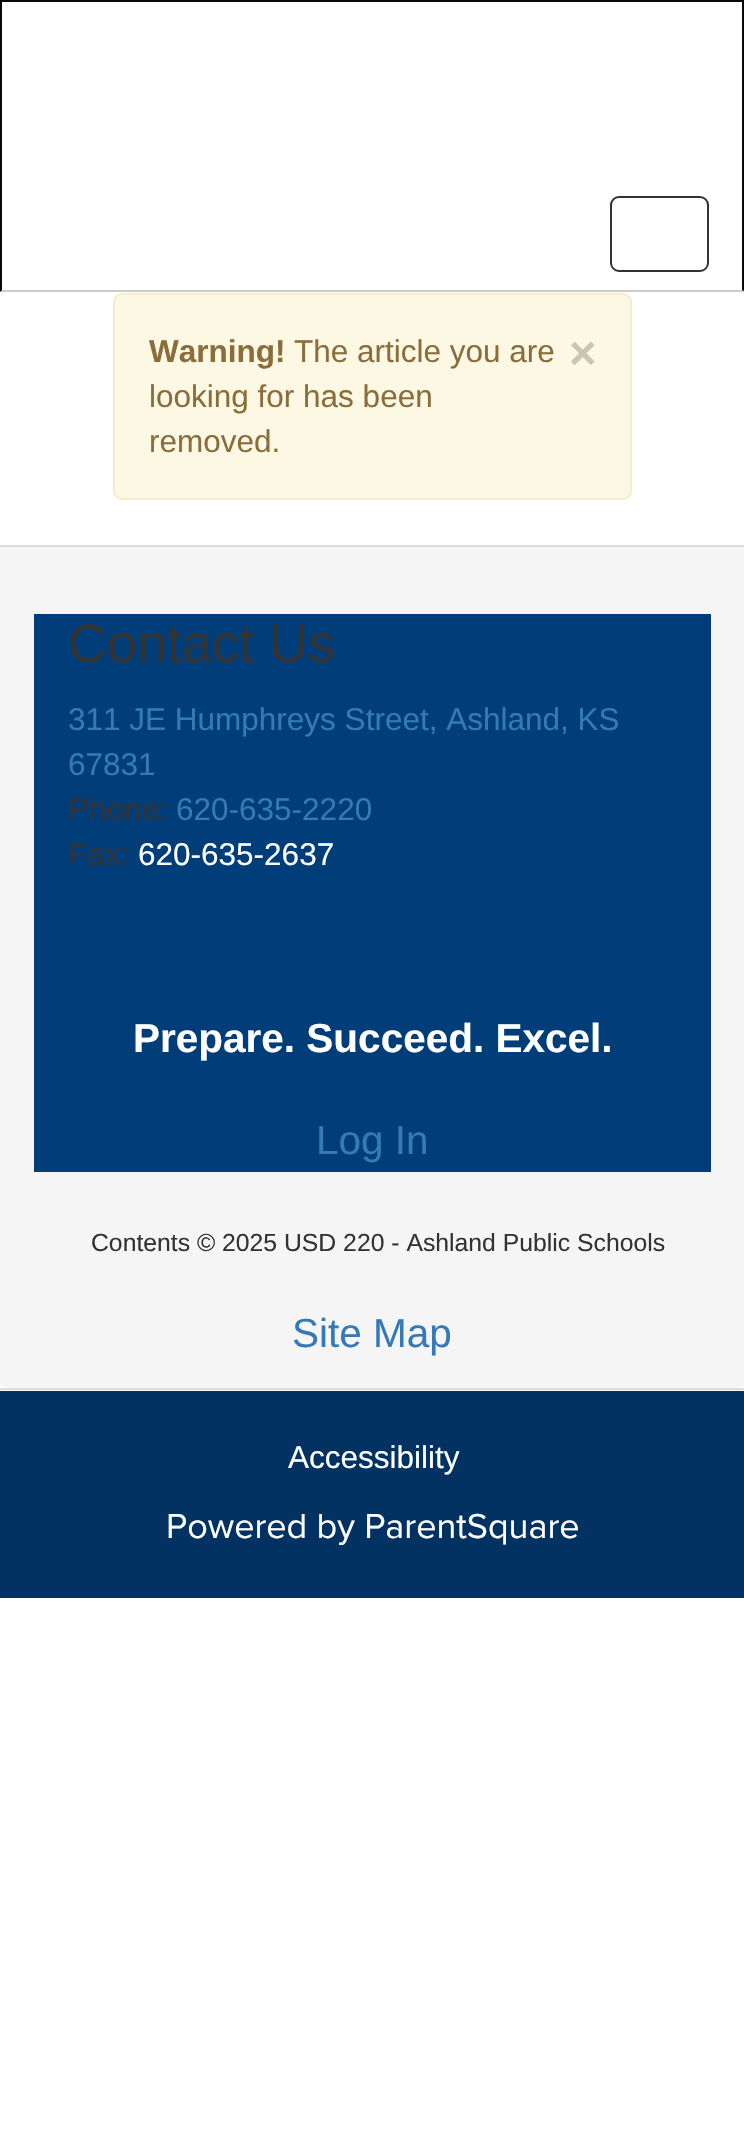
void draw(SkCanvas* canvas) {
	SkPaint fill;
	fill.setAntiAlias(true);
	auto makeFont = [&](const char* family, int weight, float size, bool italic = false) {
		SkFontStyle style(weight, SkFontStyle::kNormal_Width,
			italic ? SkFontStyle::kItalic_Slant : SkFontStyle::kUpright_Slant);
		SkFont result(fontMgr->matchFamilyStyle(family, style), size);
		result.setSubpixel(true);
		return result;
	};
	auto text = [&](const char* s, float x, float y, const SkFont& font) {
		canvas->drawString(s, x, y, font, fill);
	};
	auto box = [&](float l, float t, float r, float b) {
		canvas->drawRect(SkRect::MakeLTRB(l, t, r, b), fill);
	};
	canvas->clear(0xFFFFFFFF);
	fill.setColor(0xFF080808);
	box(0, 0, 744, 2);
	canvas->drawPath(SkPathBuilder().moveTo(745, 0).lineTo(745, 292).lineTo(742, 290).lineTo(742, 2).close().detach(), fill);
	fill.setColor(0x33000000);
	canvas->drawPath(SkPathBuilder().moveTo(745, 292).lineTo(0, 292).lineTo(2, 290).lineTo(742, 290).close().detach(), fill);
	fill.setColor(0xFF080808);
	canvas->drawPath(SkPathBuilder().moveTo(0, 292).lineTo(0, 0).lineTo(2, 2).lineTo(2, 290).close().detach(), fill);
	fill.setStyle(SkPaint::kStroke_Style);
	fill.setStrokeWidth(2);
	fill.setColor(0xFF333333);
	canvas->drawRoundRect(SkRect::MakeLTRB(611, 197, 708, 271), 8, 8, fill);
	fill.setStyle(SkPaint::kFill_Style);
	fill.setColor(0xFFFCF8E3);
	canvas->drawRoundRect(SkRect::MakeLTRB(114, 294, 631, 499), 8, 8, fill);
	fill.setStyle(SkPaint::kStroke_Style);
	fill.setColor(0xFFFAEBCC);
	canvas->drawRoundRect(SkRect::MakeLTRB(114, 294, 631, 499), 8, 8, fill);
	fill.setStyle(SkPaint::kFill_Style);
	fill.setColor(0xFFF5F5F5);
	canvas->drawPath(SkPathBuilder().moveTo(0, 545).lineTo(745, 545).lineTo(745, 1381).cubicTo(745, 1385, 742, 1388, 738, 1388).lineTo(7, 1388).cubicTo(3, 1388, 0, 1385, 0, 1381).close().detach(), fill);
	fill.setColor(0xFFDDDDDD);
	box(0, 545, 744, 547);
	fill.setColor(0xFF013E79);
	box(34, 614, 711, 1172);
	fill.setColor(0xFFF5F5F5);
	box(0, 1390, 744, 1391);
	fill.setColor(0xFFDDDDDD);
	box(0, 1388, 744, 1390);
	fill.setColor(0xFF023262);
	box(0, 1391, 744, 1598);
	auto font1 = makeFont("Liberation Sans", 700, 31.5f);
	fill.setColor(0xFF8A6D3B);
	text("Warning!", 149, 362, font1);
	auto font2 = makeFont("Liberation Sans", 400, 31.5f);
	text("The article you are", 294, 362, font2);
	auto font3 = makeFont("Liberation Sans", 700, 47);
	fill.setColor(0xFFCAC6B6);
	text("×", 569, 369, font3);
	fill.setColor(0xFF8A6D3B);
	text("looking for has been", 149, 407, font2);
	text("removed.", 149, 452, font2);
	auto font4 = makeFont("Liberation Sans", 400, 54);
	fill.setColor(0xFF333333);
	text("Contact Us", 68, 662, font4);
	fill.setColor(0xFF337AB7);
	text("311 JE Humphreys Street, Ashland, KS", 68, 730, font2);
	text("67831", 68, 775, font2);
	fill.setColor(0xFF333333);
	text("Phone:", 68, 820, font2);
	fill.setColor(0xFF337AB7);
	text("620-635-2220", 176, 820, font2);
	fill.setColor(0xFF333333);
	text("Fax:", 68, 865, font2);
	fill.setColor(0xFFFFFFFF);
	text("620-635-2637", 138, 865, font2);
	auto font5 = makeFont("Liberation Sans", 700, 40.5f);
	text("Prepare. Succeed. Excel.", 133, 1052, font5);
	auto font6 = makeFont("Liberation Sans", 400, 40.5f);
	fill.setColor(0xFF337AB7);
	text("Log In", 316, 1154, font6);
	auto font7 = makeFont("Liberation Sans", 400, 24.75f);
	fill.setColor(0xFF333333);
	text("Contents © 2025 USD 220 - Ashland Public Schools", 91, 1251, font7);
	fill.setColor(0xFF337AB7);
	text("Site Map", 292, 1347, font6);
	fill.setColor(0xFFFFFFFF);
	text("Accessibility", 288, 1468, font2);
	auto font8 = makeFont("Proxima Nova", 400, 36);
	text("Powered by ParentSquare", 166, 1538, font8);
}
